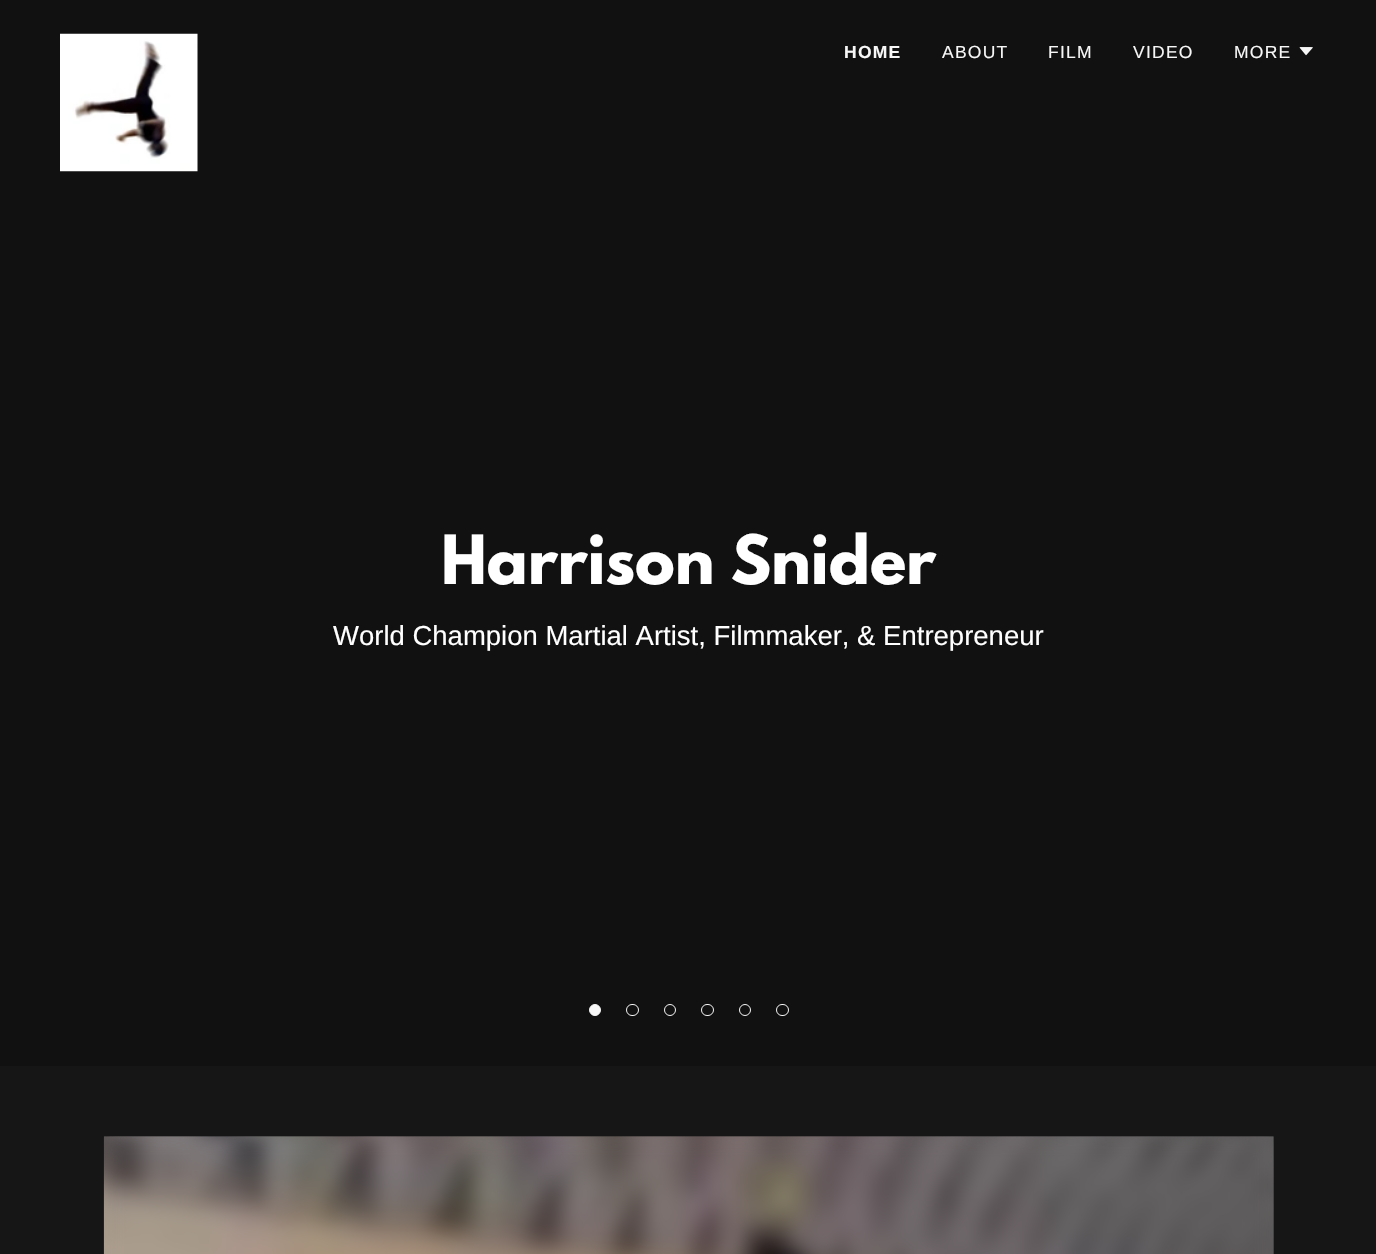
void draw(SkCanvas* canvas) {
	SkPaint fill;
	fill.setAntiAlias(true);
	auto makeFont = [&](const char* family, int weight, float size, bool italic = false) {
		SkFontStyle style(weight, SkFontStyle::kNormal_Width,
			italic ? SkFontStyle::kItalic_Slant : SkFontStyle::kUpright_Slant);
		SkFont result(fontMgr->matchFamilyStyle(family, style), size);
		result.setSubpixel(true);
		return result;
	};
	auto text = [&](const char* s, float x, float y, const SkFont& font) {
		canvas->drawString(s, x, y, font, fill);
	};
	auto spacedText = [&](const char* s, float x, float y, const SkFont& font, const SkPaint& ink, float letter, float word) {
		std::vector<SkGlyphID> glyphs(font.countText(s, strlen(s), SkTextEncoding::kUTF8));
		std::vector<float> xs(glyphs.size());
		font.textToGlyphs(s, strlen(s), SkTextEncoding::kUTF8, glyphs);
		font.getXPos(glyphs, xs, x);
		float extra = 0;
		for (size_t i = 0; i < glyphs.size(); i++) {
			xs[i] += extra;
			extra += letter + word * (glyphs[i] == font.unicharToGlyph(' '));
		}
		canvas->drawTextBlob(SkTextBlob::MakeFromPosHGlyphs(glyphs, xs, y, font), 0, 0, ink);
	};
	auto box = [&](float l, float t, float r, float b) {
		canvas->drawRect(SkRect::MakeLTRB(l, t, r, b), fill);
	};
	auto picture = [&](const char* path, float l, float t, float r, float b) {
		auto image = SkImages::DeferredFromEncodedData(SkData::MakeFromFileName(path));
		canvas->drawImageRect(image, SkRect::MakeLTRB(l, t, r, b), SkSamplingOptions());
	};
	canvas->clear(0xFF161616);
	fill.setColor(0xFF111111);
	box(0, 0, 1376, 1066);
	fill.setColor(0xFFF7F7F7);
	canvas->drawCircle(595, 1010, 5.5f, fill);
	fill.setStyle(SkPaint::kStroke_Style);
	fill.setStrokeWidth(1);
	canvas->drawCircle(595, 1010, 5.5f, fill);
	canvas->drawRoundRect(SkRect::MakeLTRB(626.5f, 1004.5f, 638.5f, 1015.5f), 5.5f, 5.5f, fill);
	canvas->drawCircle(670, 1010, 5.5f, fill);
	canvas->drawRoundRect(SkRect::MakeLTRB(701.5f, 1004.5f, 713.5f, 1015.5f), 5.5f, 5.5f, fill);
	canvas->drawCircle(745, 1010, 5.5f, fill);
	canvas->drawRoundRect(SkRect::MakeLTRB(776.5f, 1004.5f, 788.5f, 1015.5f), 5.5f, 5.5f, fill);
	picture("image0.png", 60, 33, 198, 172);
	picture("image1.png", 1299, 47, 1313, 56);
	picture("image2.png", 103, 1136, 1274, 1254);
	auto font1 = makeFont("Liberation Sans", 700, 17.5f);
	fill.setStyle(SkPaint::kFill_Style);
	spacedText("HOME", 844, 58, font1, fill, 1.25f, 0);
	auto font2 = makeFont("Liberation Sans", 400, 17.5f);
	spacedText("ABOUT", 942, 58, font2, fill, 1.25f, 0);
	spacedText("FILM", 1048, 58, font2, fill, 1.25f, 0);
	spacedText("VIDEO", 1133, 58, font2, fill, 1.25f, 0);
	spacedText("MORE", 1234, 58, font2, fill, 1.25f, 0);
	auto font3 = makeFont("League Spartan", 700, 60);
	fill.setColor(0xFFFFFFFF);
	text("Harrison Snider", 441, 584, font3);
	auto font4 = makeFont("Liberation Sans", 400, 27.5f);
	text("World Champion Martial Artist, Filmmaker, & Entrepreneur", 333, 645, font4);
}
